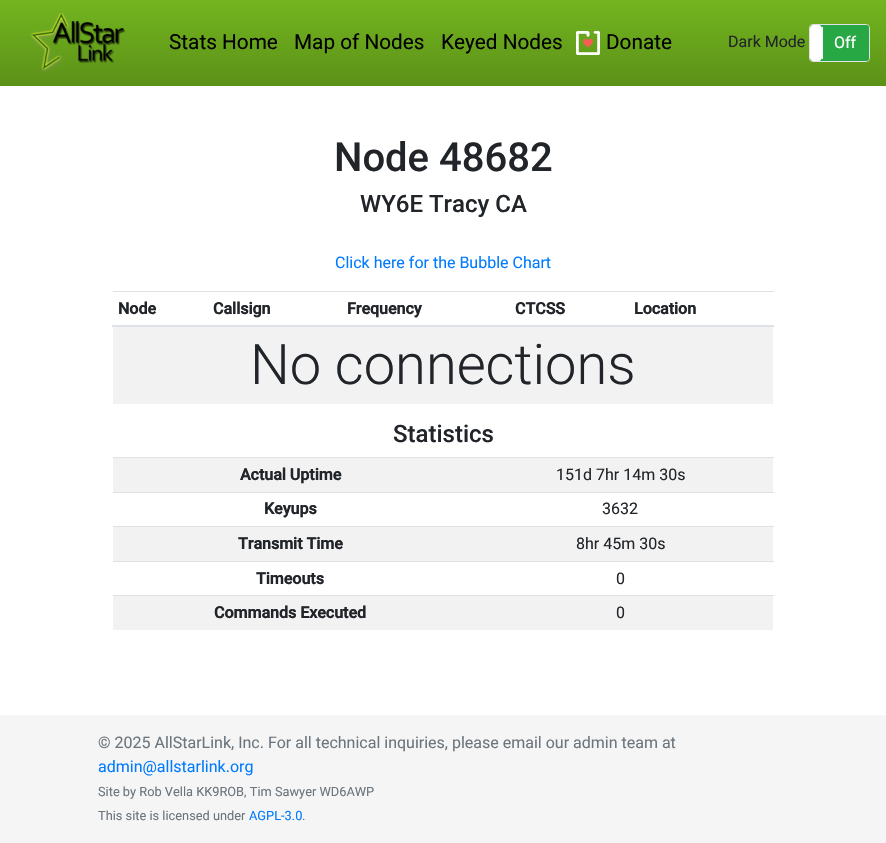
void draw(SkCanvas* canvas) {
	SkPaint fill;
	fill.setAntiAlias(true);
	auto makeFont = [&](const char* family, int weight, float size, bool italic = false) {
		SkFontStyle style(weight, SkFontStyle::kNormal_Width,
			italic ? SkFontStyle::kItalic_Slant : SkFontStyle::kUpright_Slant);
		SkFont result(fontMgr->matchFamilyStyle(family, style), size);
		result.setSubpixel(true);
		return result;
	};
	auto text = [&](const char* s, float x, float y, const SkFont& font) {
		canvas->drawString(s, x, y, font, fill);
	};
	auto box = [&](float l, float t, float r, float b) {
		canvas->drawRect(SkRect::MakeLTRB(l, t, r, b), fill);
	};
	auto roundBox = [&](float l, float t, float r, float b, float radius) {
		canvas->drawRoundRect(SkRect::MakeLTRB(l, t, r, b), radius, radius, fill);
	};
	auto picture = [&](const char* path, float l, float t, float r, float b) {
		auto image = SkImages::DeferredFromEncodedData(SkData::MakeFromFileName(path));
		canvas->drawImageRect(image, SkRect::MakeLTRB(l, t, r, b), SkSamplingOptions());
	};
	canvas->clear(0xFFFFFFFF);
	{
		const SkColor colors[] = {0xFF73B51F, 0xFF5C9118};
		const float stops[] = {0, 1};
		const SkPoint ends[] = {{443, 0}, {443, 86}};
		fill.setShader(SkGradientShader::MakeLinear(ends, colors, stops, 2, SkTileMode::kClamp));
		fill.setAlpha(255);
	}
	box(0, 0, 886, 86);
	picture("image0.png", 30, 13, 126, 73);
	picture("image1.png", 576, 31, 600, 55);
	fill.setStyle(SkPaint::kStroke_Style);
	fill.setStrokeWidth(1);
	fill.setShader(nullptr);
	fill.setColor(0xFFDEE2E6);
	canvas->drawRoundRect(SkRect::MakeLTRB(809.5f, 24.5f, 869.5f, 61.5f), 3.5f, 3.5f, fill);
	fill.setStyle(SkPaint::kFill_Style);
	fill.setColor(0xFF28A745);
	roundBox(810, 25, 869, 61, 3);
	fill.setColor(0xFFFFFFFF);
	canvas->drawPath(SkPathBuilder().moveTo(813, 25).cubicTo(811.5f, 25, 810, 26.5f, 810, 28).lineTo(810, 58).cubicTo(810, 59.5f, 811.5f, 61, 813, 61).lineTo(819, 61).cubicTo(820.5f, 61, 822, 59, 822, 57).lineTo(822, 29).cubicTo(822, 27, 820.5f, 25, 819, 25).close().detach(), fill);
	fill.setColor(0xFFF8F9FA);
	box(822, 27, 823, 59);
	fill.setColor(0xFFDEE2E6);
	box(113, 291, 774, 292);
	box(112, 325, 774, 327);
	fill.setColor(0xFFF2F2F2);
	box(113, 327, 773, 404);
	box(113, 458, 773, 492);
	fill.setColor(0xFFDEE2E6);
	box(113, 457, 774, 458);
	box(113, 492, 774, 493);
	fill.setColor(0xFFF2F2F2);
	box(113, 527, 773, 561);
	fill.setColor(0xFFDEE2E6);
	box(113, 526, 774, 527);
	box(113, 561, 774, 562);
	fill.setColor(0xFFF2F2F2);
	box(113, 596, 773, 630);
	fill.setColor(0xFFDEE2E6);
	box(113, 595, 774, 596);
	fill.setColor(0xFFF5F5F5);
	box(0, 715, 886, 843);
	auto font1 = makeFont("Roboto", 400, 20.75f);
	fill.setColor(0xFF000000);
	text("Stats Home", 169, 49, font1);
	text("Map of Nodes", 294, 49, font1);
	text("Keyed Nodes", 441, 49, font1);
	text("Donate", 606, 49, font1);
	auto font2 = makeFont("Roboto", 400, 16);
	fill.setColor(0xFF212529);
	text("Dark Mode", 728, 47, font2);
	fill.setColor(0xFFFFFFFF);
	text("Off", 834, 48, font2);
	auto font3 = makeFont("Roboto", 500, 40);
	fill.setColor(0xFF212529);
	text("Node 48682", 334, 171, font3);
	auto font4 = makeFont("Roboto", 500, 24);
	text("WY6E Tracy CA", 360, 212, font4);
	fill.setColor(0xFF007BFF);
	text("Click here for the Bubble Chart", 335, 268, font2);
	auto font5 = makeFont("Roboto", 700, 16);
	fill.setColor(0xFF212529);
	text("Node", 118, 314, font5);
	text("Callsign", 213, 314, font5);
	text("Frequency", 347, 314, font5);
	text("CTCSS", 515, 314, font5);
	text("Location", 634, 314, font5);
	auto font6 = makeFont("Roboto", 300, 56);
	text("No connections", 250, 384, font6);
	text("Statistics", 393, 442, font4);
	text("Actual Uptime", 240, 480, font5);
	text("151d 7hr 14m 30s", 556, 480, font2);
	text("Keyups", 264, 514, font5);
	text("3632", 602, 514, font2);
	text("Transmit Time", 238, 549, font5);
	text("8hr 45m 30s", 576, 549, font2);
	text("Timeouts", 256, 584, font5);
	text("0", 616, 584, font2);
	text("Commands Executed", 214, 618, font5);
	text("0", 616, 618, font2);
	fill.setColor(0xFF6C757D);
	text("© 2025 AllStarLink, Inc. For all technical inquiries, please email our admin team at", 98, 748, font2);
	fill.setColor(0xFF007BFF);
	text("admin@allstarlink.org", 98, 772, font2);
	auto font7 = makeFont("Roboto", 400, 12.8f);
	fill.setColor(0xFF6C757D);
	text("Site by Rob Vella KK9ROB, Tim Sawyer WD6AWP", 98, 796, font7);
	text("This site is licensed under", 98, 820, font7);
	fill.setColor(0xFF007BFF);
	text("AGPL-3.0", 249, 820, font7);
	fill.setColor(0xFF6C757D);
	text(".", 302, 820, font7);
}
